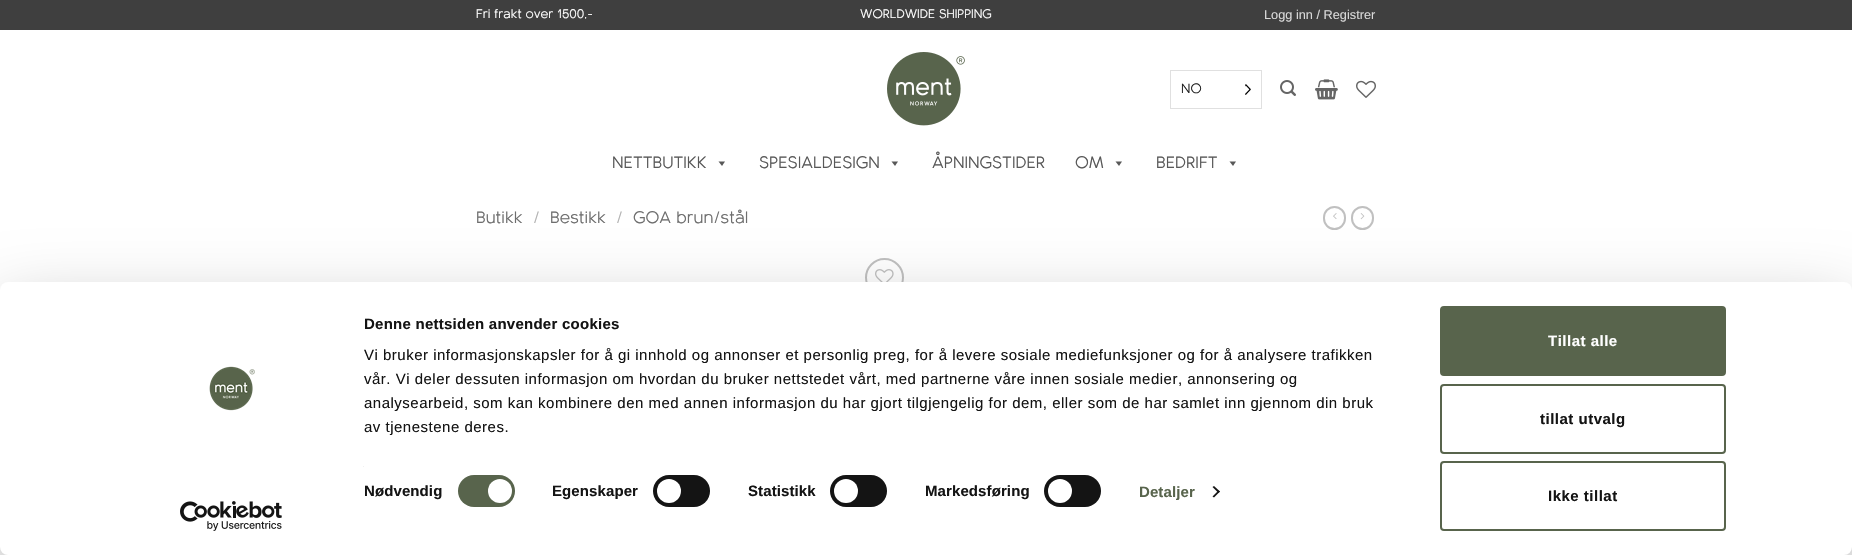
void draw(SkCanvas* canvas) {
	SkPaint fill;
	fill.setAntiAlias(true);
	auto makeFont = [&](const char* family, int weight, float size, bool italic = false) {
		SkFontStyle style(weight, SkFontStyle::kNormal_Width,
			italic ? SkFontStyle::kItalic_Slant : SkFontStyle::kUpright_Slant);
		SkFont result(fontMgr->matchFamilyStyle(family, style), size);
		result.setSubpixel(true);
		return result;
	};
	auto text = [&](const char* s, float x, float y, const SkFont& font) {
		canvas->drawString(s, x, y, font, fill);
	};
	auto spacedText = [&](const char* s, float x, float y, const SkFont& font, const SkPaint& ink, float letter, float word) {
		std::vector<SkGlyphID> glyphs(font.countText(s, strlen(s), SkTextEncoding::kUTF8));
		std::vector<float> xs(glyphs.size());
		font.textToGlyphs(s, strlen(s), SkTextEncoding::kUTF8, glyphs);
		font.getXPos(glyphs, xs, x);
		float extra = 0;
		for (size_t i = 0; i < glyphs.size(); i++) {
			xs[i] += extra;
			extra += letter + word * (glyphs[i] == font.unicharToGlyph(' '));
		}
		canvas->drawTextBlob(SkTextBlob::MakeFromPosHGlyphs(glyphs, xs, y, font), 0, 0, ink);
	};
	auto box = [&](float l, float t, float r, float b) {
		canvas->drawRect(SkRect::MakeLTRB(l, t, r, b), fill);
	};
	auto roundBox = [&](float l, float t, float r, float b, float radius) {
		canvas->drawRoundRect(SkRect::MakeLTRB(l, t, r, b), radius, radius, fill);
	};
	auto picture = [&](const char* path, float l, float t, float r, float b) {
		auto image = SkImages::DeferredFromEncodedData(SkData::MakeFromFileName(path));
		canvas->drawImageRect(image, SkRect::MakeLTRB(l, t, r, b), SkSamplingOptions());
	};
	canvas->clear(0xFFFFFFFF);
	fill.setColor(0xFF3F3F3F);
	box(0, 0, 1852, 30);
	picture("image0.png", 887, 52, 965, 126);
	fill.setStyle(SkPaint::kStroke_Style);
	fill.setStrokeWidth(1);
	fill.setColor(0xFFE0E0E0);
	canvas->drawRect(SkRect::MakeLTRB(1170.5f, 70.5f, 1261.5f, 108.5f), fill);
	picture("image1.png", 1245, 84, 1251, 95);
	picture("image2.png", 1280, 80, 1296, 96);
	picture("image3.png", 1315, 79, 1338, 100);
	picture("image4.png", 1356, 80, 1376, 98);
	fill.setStyle(SkPaint::kFill_Style);
	fill.setColor(0xFF585858);
	canvas->drawPath(SkPathBuilder().moveTo(725, 161.5f).lineTo(722, 166).lineTo(718.5f, 161.5f).close().detach(), fill);
	canvas->drawPath(SkPathBuilder().moveTo(898, 161.5f).lineTo(895, 166).lineTo(891.5f, 161.5f).close().detach(), fill);
	canvas->drawPath(SkPathBuilder().moveTo(1122, 161.5f).lineTo(1119, 166).lineTo(1115.5f, 161.5f).close().detach(), fill);
	canvas->drawPath(SkPathBuilder().moveTo(1236, 161.5f).lineTo(1233, 166).lineTo(1229.5f, 161.5f).close().detach(), fill);
	fill.setStyle(SkPaint::kStroke_Style);
	fill.setStrokeWidth(2);
	fill.setColor(0xFFC0C0C0);
	canvas->drawRoundRect(SkRect::MakeLTRB(1324, 207, 1345, 229), 10.5f, 10.5f, fill);
	picture("image5.png", 1333, 213, 1337, 219);
	canvas->drawRoundRect(SkRect::MakeLTRB(1352, 207, 1373, 229), 10.5f, 10.5f, fill);
	picture("image6.png", 1360, 213, 1365, 220);
	canvas->drawCircle(884.5f, 277.5f, 18.5f, fill);
	picture("image7.png", 875, 269, 894, 282);
	fill.setStyle(SkPaint::kFill_Style);
	fill.setColor(0x4D000000);
	fill.setMaskFilter(SkMaskFilter::MakeBlur(kNormal_SkBlurStyle, 35));
	canvas->drawRoundRect(SkRect::MakeLTRB(0, 312, 1852, 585), 8, 8, fill);
	fill.setMaskFilter(nullptr);
	fill.setColor(0x1A000000);
	fill.setMaskFilter(SkMaskFilter::MakeBlur(kNormal_SkBlurStyle, 5));
	canvas->drawRect(SkRect::MakeLTRB(1852, 477, 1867, 550), fill);
	fill.setMaskFilter(nullptr);
	fill.setColor(0xFFFFFFFF);
	roundBox(0, 282, 1852, 555, 8);
	picture("image8.png", 209, 366, 255, 411);
	picture("image9.png", 180, 501, 282, 531);
	fill.setColor(0xFFF1F1F1);
	box(363, 466, 364, 467);
	fill.setColor(0xFF58644C);
	roundBox(458, 475, 515, 507, 16);
	fill.setColor(0xFFFFFFFF);
	canvas->drawCircle(500, 491, 12, fill);
	fill.setColor(0xFF141414);
	roundBox(653, 475, 710, 507, 16);
	fill.setColor(0xFFFFFFFF);
	canvas->drawCircle(669, 491, 12, fill);
	fill.setColor(0xFF141414);
	roundBox(830, 475, 887, 507, 16);
	fill.setColor(0xFFFFFFFF);
	canvas->drawCircle(846, 491, 12, fill);
	fill.setColor(0xFF141414);
	roundBox(1044, 475, 1101, 507, 16);
	fill.setColor(0xFFFFFFFF);
	canvas->drawCircle(1060, 491, 12, fill);
	fill.setColor(0xFF141414);
	canvas->drawPath(SkPathBuilder().moveTo(1214, 486).lineTo(1220, 491.5f).lineTo(1218.5f, 493).lineTo(1212.5f, 487).close().detach(), fill);
	canvas->drawPath(SkPathBuilder().moveTo(1218.5f, 490.5f).lineTo(1220, 491.5f).lineTo(1214, 497.5f).lineTo(1212.5f, 496.5f).close().detach(), fill);
	fill.setColor(0xFF58644C);
	canvas->drawRoundRect(SkRect::MakeLTRB(1441, 307, 1725, 375), 3, 3, fill);
	fill.setStyle(SkPaint::kStroke_Style);
	canvas->drawRoundRect(SkRect::MakeLTRB(1441, 307, 1725, 375), 3, 3, fill);
	canvas->drawRoundRect(SkRect::MakeLTRB(1441, 385, 1725, 453), 3, 3, fill);
	canvas->drawRoundRect(SkRect::MakeLTRB(1441, 462, 1725, 530), 3, 3, fill);
	auto font1 = makeFont("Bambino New", 400, 12);
	fill.setStyle(SkPaint::kFill_Style);
	fill.setColor(0xFFFFFFFF);
	text("Fri frakt over 1500,-", 476, 18, font1);
	text("WORLDWIDE SHIPPING", 860, 18, font1);
	auto font2 = makeFont("Liberation Sans", 400, 12.75f);
	fill.setColor(0xFFD9D9D9);
	text("Logg inn / Registrer", 1264, 19, font2);
	auto font3 = makeFont("Bambino New", 400, 13);
	fill.setColor(0xFF222222);
	text("NO", 1181, 93, font3);
	auto font4 = makeFont("Bambino New", 400, 16);
	fill.setColor(0xFF585858);
	text("NETTBUTIKK", 612, 168, font4);
	text("SPESIALDESIGN", 759, 168, font4);
	text("ÅPNINGSTIDER", 932, 168, font4);
	text("OM", 1075, 168, font4);
	text("BEDRIFT", 1156, 168, font4);
	fill.setColor(0xFF6E6E6E);
	text("Butikk", 476, 223, font4);
	fill.setColor(0xFFB2B2B2);
	text("/", 533, 223, font4);
	fill.setColor(0xFF6E6E6E);
	text("Bestikk", 550, 223, font4);
	fill.setColor(0xFFB2B2B2);
	text("/", 616, 223, font4);
	fill.setColor(0xFF6E6E6E);
	text("GOA brun/stål", 633, 223, font4);
	auto font5 = makeFont("Liberation Sans", 700, 15);
	fill.setColor(0xFF141414);
	spacedText("Denne nettsiden anvender cookies", 364, 329, font5, fill, 0.25f, 0);
	auto font6 = makeFont("Liberation Sans", 400, 15);
	spacedText("Vi bruker informasjonskapsler for å gi innhold og annonser et personlig preg, for å levere sosiale mediefunksjoner og for å analysere trafikken", 364, 360, font6, fill, 0.5f, 0);
	spacedText("vår. Vi deler dessuten informasjon om hvordan du bruker nettstedet vårt, med partnerne våre innen sosiale medier, annonsering og", 364, 384, font6, fill, 0.5f, 0);
	spacedText("analysearbeid, som kan kombinere den med annen informasjon du har gjort tilgjengelig for dem, eller som de har samlet inn gjennom din bruk", 364, 408, font6, fill, 0.5f, 0);
	spacedText("av tjenestene deres.", 364, 432, font6, fill, 0.5f, 0);
	spacedText("Nødvendig", 364, 496, font5, fill, 0.1f, 0);
	spacedText("Egenskaper", 552, 496, font5, fill, 0.1f, 0);
	spacedText("Statistikk", 748, 496, font5, fill, 0.1f, 0);
	spacedText("Markedsføring", 925, 496, font5, fill, 0.1f, 0);
	fill.setColor(0xFF58644C);
	spacedText("Detaljer", 1139, 497, font5, fill, 0.1f, 0);
	fill.setColor(0xFFFFFFFF);
	spacedText("Tillat alle", 1548, 346, font5, fill, 0.5f, 0);
	fill.setColor(0xFF141414);
	spacedText("tillat utvalg", 1540, 424, font5, fill, 0.5f, 0);
	spacedText("Ikke tillat", 1548, 501, font5, fill, 0.5f, 0);
}
